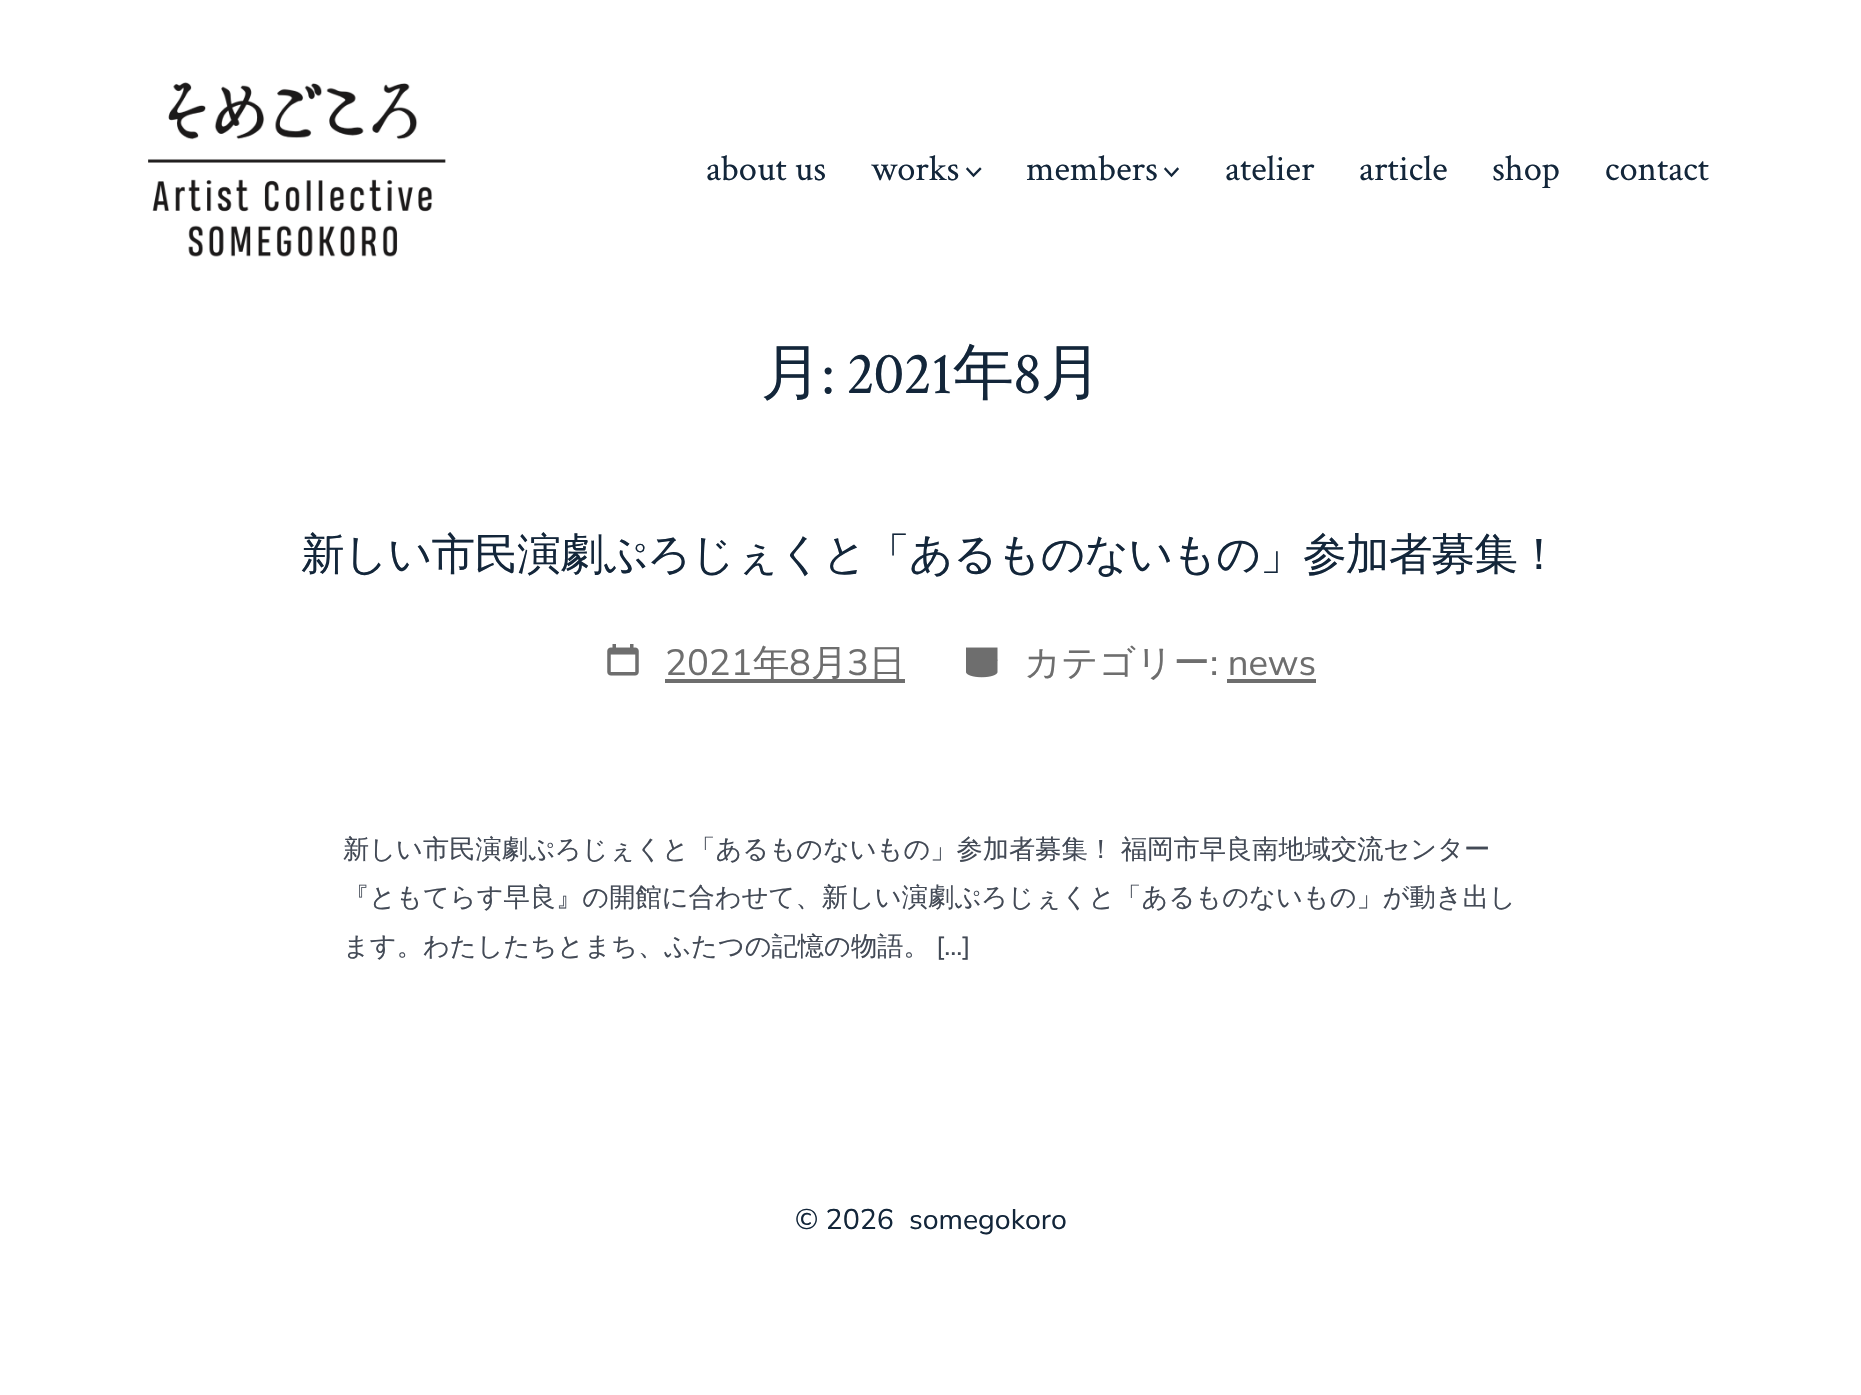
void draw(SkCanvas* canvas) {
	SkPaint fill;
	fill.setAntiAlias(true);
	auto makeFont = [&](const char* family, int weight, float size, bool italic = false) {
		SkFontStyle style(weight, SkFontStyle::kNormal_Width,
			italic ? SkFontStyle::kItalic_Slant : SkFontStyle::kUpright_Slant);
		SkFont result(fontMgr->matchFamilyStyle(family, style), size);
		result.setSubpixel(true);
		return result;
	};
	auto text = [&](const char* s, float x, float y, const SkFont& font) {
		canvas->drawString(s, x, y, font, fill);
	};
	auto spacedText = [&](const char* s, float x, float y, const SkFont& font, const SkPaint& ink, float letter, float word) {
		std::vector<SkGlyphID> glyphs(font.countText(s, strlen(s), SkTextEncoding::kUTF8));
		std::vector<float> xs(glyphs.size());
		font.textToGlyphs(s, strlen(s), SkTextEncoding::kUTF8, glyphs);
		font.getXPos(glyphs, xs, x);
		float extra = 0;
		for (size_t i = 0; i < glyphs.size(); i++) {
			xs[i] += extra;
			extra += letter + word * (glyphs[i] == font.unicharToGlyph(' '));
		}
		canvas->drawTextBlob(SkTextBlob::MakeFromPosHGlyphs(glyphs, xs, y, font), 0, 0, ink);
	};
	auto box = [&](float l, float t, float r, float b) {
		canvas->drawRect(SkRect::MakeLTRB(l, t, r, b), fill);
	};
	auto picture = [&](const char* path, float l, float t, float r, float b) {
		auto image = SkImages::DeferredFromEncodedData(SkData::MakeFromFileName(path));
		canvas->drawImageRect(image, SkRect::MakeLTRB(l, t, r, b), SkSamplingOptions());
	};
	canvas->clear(0xFFFFFFFF);
	picture("image0.png", 148, 82, 446, 257);
	fill.setStyle(SkPaint::kStroke_Style);
	fill.setStrokeWidth(2.3f);
	fill.setStrokeCap(SkPaint::kSquare_Cap);
	fill.setColor(0xFF13263A);
	canvas->drawPath(SkPathBuilder().moveTo(967.5f, 169).lineTo(973.5f, 175.5f).lineTo(980, 169).detach(), fill);
	canvas->drawPath(SkPathBuilder().moveTo(1165.5f, 169).lineTo(1171.5f, 175.5f).lineTo(1177.5f, 169).detach(), fill);
	picture("image1.png", 607, 644, 639, 676);
	fill.setStyle(SkPaint::kFill_Style);
	fill.setColor(0xFF6E6E6E);
	box(665, 679, 905, 683);
	picture("image2.png", 966, 647, 998, 678);
	box(1227, 679, 1316, 683);
	auto font1 = makeFont("Crimson Text", 400, 36.5f);
	fill.setColor(0xFF13263A);
	text("about us", 706, 180, font1);
	text("works", 871, 180, font1);
	text("members", 1026, 180, font1);
	text("atelier", 1225, 180, font1);
	text("article", 1359, 180, font1);
	text("shop", 1492, 180, font1);
	text("contact", 1605, 180, font1);
	auto font2 = makeFont("WenQuanYi Zen Hei", 500, 61);
	spacedText("月", 761, 393, font2, fill, -1.25f, 0);
	auto font3 = makeFont("Crimson Text", 400, 61);
	spacedText(": 2021", 821, 393, font3, fill, -1.25f, 0);
	spacedText("年", 953, 393, font2, fill, -1.25f, 0);
	spacedText("8", 1013, 393, font3, fill, -1.25f, 0);
	spacedText("月", 1041, 393, font2, fill, -1.25f, 0);
	auto font4 = makeFont("WenQuanYi Zen Hei", 500, 43.75f);
	spacedText("新しい市民演劇ぷろじぇくと「あるものないもの」参加者募集！", 301, 569, font4, fill, -0.9f, 0);
	auto font5 = makeFont("Nunito Sans", 400, 36.5f);
	fill.setColor(0xFF6E6E6E);
	text("2021", 665, 675, font5);
	auto font6 = makeFont("WenQuanYi Zen Hei", 500, 36.5f);
	text("年", 753, 675, font6);
	text("8", 789, 675, font5);
	text("月", 811, 675, font6);
	text("3", 847, 675, font5);
	text("日", 869, 675, font6);
	text("カテゴリー", 1024, 675, font6);
	text(": news", 1210, 675, font5);
	auto font7 = makeFont("WenQuanYi Zen Hei", 500, 26.25f);
	fill.setColor(0xFF434A56);
	spacedText("新しい市民演劇ぷろじぇくと「あるものないもの」参加者募集！ 福岡市早良南地域交流センター", 343, 858, font7, fill, 0, -1);
	text("『ともてらす早良』の開館に合わせて、新しい演劇ぷろじぇくと「あるものないもの」が動き出し", 343, 906, font7);
	text("ます。わたしたちとまち、ふたつの記憶の物語。", 343, 955, font7);
	auto font8 = makeFont("Nunito Sans", 400, 26.25f);
	text("[…]", 936, 955, font8);
	auto font9 = makeFont("Nunito Sans", 400, 28.5f);
	fill.setColor(0xFF13263A);
	text("© 2026", 795, 1229, font9);
	text("somegokoro", 909, 1229, font9);
}
